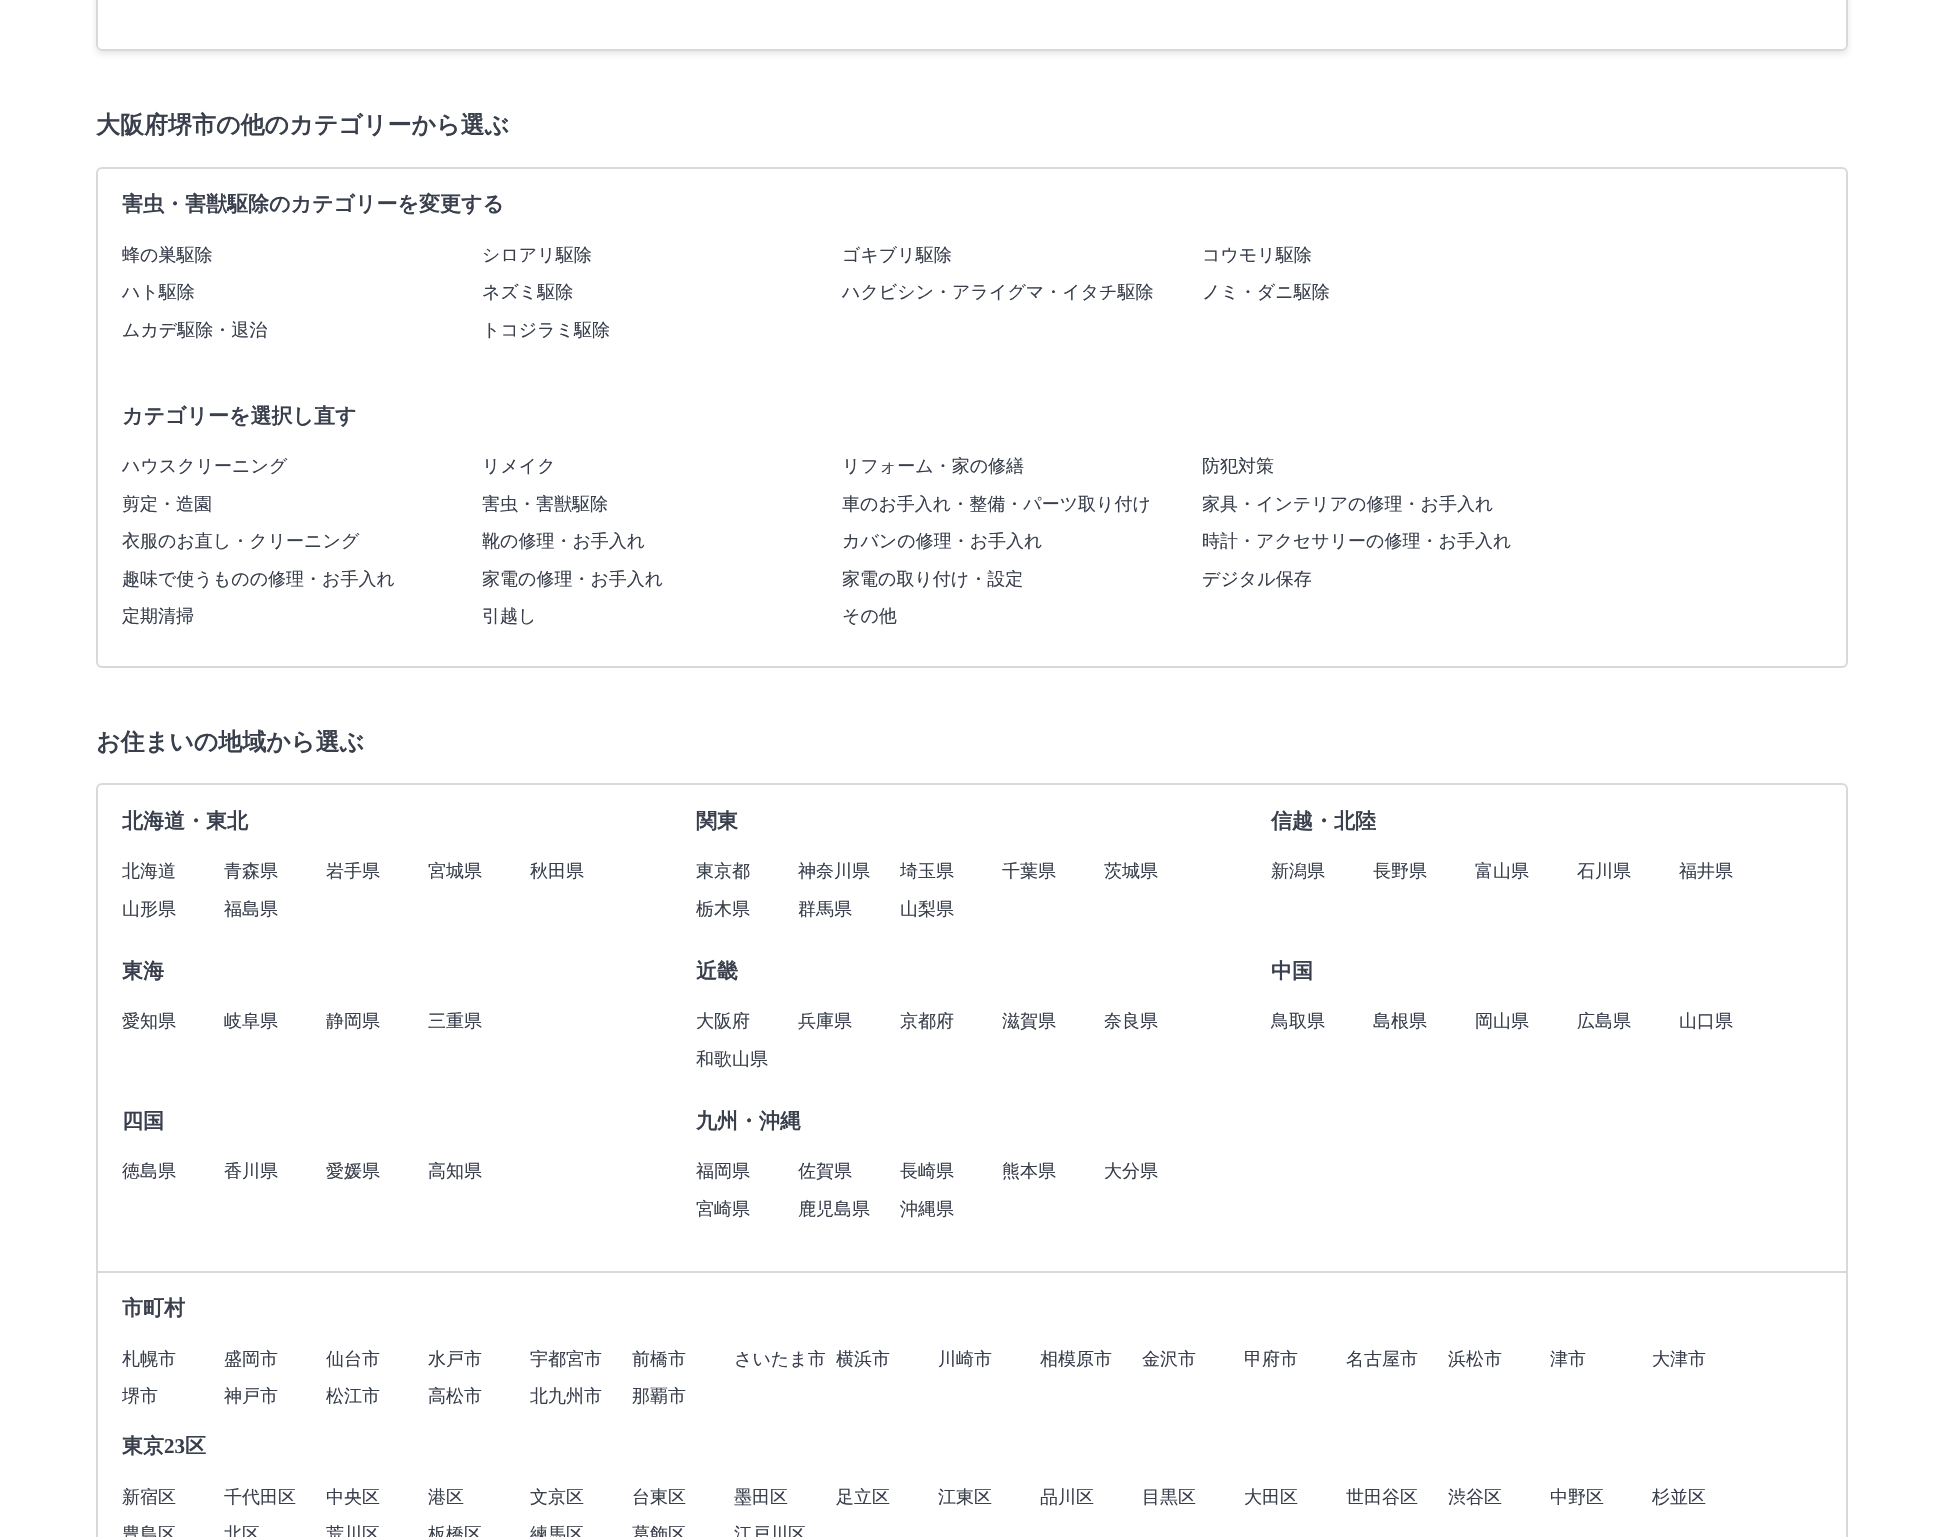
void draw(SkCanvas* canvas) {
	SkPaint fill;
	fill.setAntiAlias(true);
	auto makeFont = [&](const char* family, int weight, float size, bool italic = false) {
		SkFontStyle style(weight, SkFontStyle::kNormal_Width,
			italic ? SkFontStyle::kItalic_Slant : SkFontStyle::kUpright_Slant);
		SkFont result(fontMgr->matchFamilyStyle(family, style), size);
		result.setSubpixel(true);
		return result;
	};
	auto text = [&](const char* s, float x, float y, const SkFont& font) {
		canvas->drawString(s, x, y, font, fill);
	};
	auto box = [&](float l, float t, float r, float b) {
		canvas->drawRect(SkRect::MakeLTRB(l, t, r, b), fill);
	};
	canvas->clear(0xFFFFFFFF);
	canvas->save();
	canvas->clipPath(SkPathBuilder(SkPathFillType::kEvenOdd).moveTo(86, 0).lineTo(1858, 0).lineTo(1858, 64).lineTo(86, 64).close().moveTo(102, -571).lineTo(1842, -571).cubicTo(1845.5f, -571, 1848, -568.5f, 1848, -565).lineTo(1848, 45).cubicTo(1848, 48.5f, 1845.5f, 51, 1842, 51).lineTo(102, 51).cubicTo(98.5f, 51, 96, 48.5f, 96, 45).lineTo(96, -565).cubicTo(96, -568.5f, 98.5f, -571, 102, -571).close().detach(), true);
	fill.setColor(0x80CBCBCB);
	fill.setMaskFilter(SkMaskFilter::MakeBlur(kNormal_SkBlurStyle, 3));
	canvas->drawRoundRect(SkRect::MakeLTRB(96, -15, 1848, 54), 6, 6, fill);
	fill.setMaskFilter(nullptr);
	canvas->restore();
	fill.setStyle(SkPaint::kStroke_Style);
	fill.setStrokeWidth(2);
	fill.setColor(0xFFD9D9D9);
	canvas->drawRoundRect(SkRect::MakeLTRB(97, -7, 1847, 50), 5, 5, fill);
	canvas->drawRoundRect(SkRect::MakeLTRB(97, 168, 1847, 667), 5, 5, fill);
	canvas->drawRoundRect(SkRect::MakeLTRB(97, 784, 1847, 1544), 5, 5, fill);
	fill.setStyle(SkPaint::kFill_Style);
	box(98, 1271, 1847, 1273);
	auto font1 = makeFont("WenQuanYi Zen Hei", 700, 24);
	fill.setColor(0xFF393F4C);
	text("大阪府堺市の他のカテゴリーから選ぶ", 96, 133, font1);
	auto font2 = makeFont("WenQuanYi Zen Hei", 700, 21);
	text("害虫・害獣駆除のカテゴリーを変更する", 122, 211, font2);
	auto font3 = makeFont("WenQuanYi Zen Hei", 500, 18);
	text("蜂の巣駆除", 122, 261, font3);
	text("シロアリ駆除", 482, 261, font3);
	text("ゴキブリ駆除", 842, 261, font3);
	text("コウモリ駆除", 1202, 261, font3);
	text("ハト駆除", 122, 298, font3);
	text("ネズミ駆除", 482, 298, font3);
	text("ハクビシン・アライグマ・イタチ駆除", 842, 298, font3);
	text("ノミ・ダニ駆除", 1202, 298, font3);
	text("ムカデ駆除・退治", 122, 336, font3);
	text("トコジラミ駆除", 482, 336, font3);
	text("カテゴリーを選択し直す", 122, 423, font2);
	text("ハウスクリーニング", 122, 472, font3);
	text("リメイク", 482, 472, font3);
	text("リフォーム・家の修繕", 842, 472, font3);
	text("防犯対策", 1202, 472, font3);
	text("剪定・造園", 122, 510, font3);
	text("害虫・害獣駆除", 482, 510, font3);
	text("車のお手入れ・整備・パーツ取り付け", 842, 510, font3);
	text("家具・インテリアの修理・お手入れ", 1202, 510, font3);
	text("衣服のお直し・クリーニング", 122, 547, font3);
	text("靴の修理・お手入れ", 482, 547, font3);
	text("カバンの修理・お手入れ", 842, 547, font3);
	text("時計・アクセサリーの修理・お手入れ", 1202, 547, font3);
	text("趣味で使うものの修理・お手入れ", 122, 585, font3);
	text("家電の修理・お手入れ", 482, 585, font3);
	text("家電の取り付け・設定", 842, 585, font3);
	text("デジタル保存", 1202, 585, font3);
	text("定期清掃", 122, 622, font3);
	text("引越し", 482, 622, font3);
	text("その他", 842, 622, font3);
	text("お住まいの地域から選ぶ", 96, 750, font1);
	text("北海道・東北", 122, 828, font2);
	text("北海道", 122, 877, font3);
	text("青森県", 224, 877, font3);
	text("岩手県", 326, 877, font3);
	text("宮城県", 428, 877, font3);
	text("秋田県", 530, 877, font3);
	text("山形県", 122, 915, font3);
	text("福島県", 224, 915, font3);
	text("関東", 696, 828, font2);
	text("東京都", 696, 877, font3);
	text("神奈川県", 798, 877, font3);
	text("埼玉県", 900, 877, font3);
	text("千葉県", 1002, 877, font3);
	text("茨城県", 1104, 877, font3);
	text("栃木県", 696, 915, font3);
	text("群馬県", 798, 915, font3);
	text("山梨県", 900, 915, font3);
	text("信越・北陸", 1271, 828, font2);
	text("新潟県", 1271, 877, font3);
	text("長野県", 1373, 877, font3);
	text("富山県", 1475, 877, font3);
	text("石川県", 1577, 877, font3);
	text("福井県", 1679, 877, font3);
	text("東海", 122, 978, font2);
	text("愛知県", 122, 1027, font3);
	text("岐阜県", 224, 1027, font3);
	text("静岡県", 326, 1027, font3);
	text("三重県", 428, 1027, font3);
	text("近畿", 696, 978, font2);
	text("大阪府", 696, 1027, font3);
	text("兵庫県", 798, 1027, font3);
	text("京都府", 900, 1027, font3);
	text("滋賀県", 1002, 1027, font3);
	text("奈良県", 1104, 1027, font3);
	text("和歌山県", 696, 1065, font3);
	text("中国", 1271, 978, font2);
	text("鳥取県", 1271, 1027, font3);
	text("島根県", 1373, 1027, font3);
	text("岡山県", 1475, 1027, font3);
	text("広島県", 1577, 1027, font3);
	text("山口県", 1679, 1027, font3);
	text("四国", 122, 1128, font2);
	text("徳島県", 122, 1177, font3);
	text("香川県", 224, 1177, font3);
	text("愛媛県", 326, 1177, font3);
	text("高知県", 428, 1177, font3);
	text("九州・沖縄", 696, 1128, font2);
	text("福岡県", 696, 1177, font3);
	text("佐賀県", 798, 1177, font3);
	text("長崎県", 900, 1177, font3);
	text("熊本県", 1002, 1177, font3);
	text("大分県", 1104, 1177, font3);
	text("宮崎県", 696, 1215, font3);
	text("鹿児島県", 798, 1215, font3);
	text("沖縄県", 900, 1215, font3);
	text("市町村", 122, 1315, font2);
	text("札幌市", 122, 1365, font3);
	text("盛岡市", 224, 1365, font3);
	text("仙台市", 326, 1365, font3);
	text("水戸市", 428, 1365, font3);
	text("宇都宮市", 530, 1365, font3);
	text("前橋市", 632, 1365, font3);
	text("さいたま市", 734, 1365, font3);
	text("横浜市", 836, 1365, font3);
	text("川崎市", 938, 1365, font3);
	text("相模原市", 1040, 1365, font3);
	text("金沢市", 1142, 1365, font3);
	text("甲府市", 1244, 1365, font3);
	text("名古屋市", 1346, 1365, font3);
	text("浜松市", 1448, 1365, font3);
	text("津市", 1550, 1365, font3);
	text("大津市", 1652, 1365, font3);
	text("堺市", 122, 1402, font3);
	text("神戸市", 224, 1402, font3);
	text("松江市", 326, 1402, font3);
	text("高松市", 428, 1402, font3);
	text("北九州市", 530, 1402, font3);
	text("那覇市", 632, 1402, font3);
	text("東京", 122, 1453, font2);
	auto font4 = makeFont("Liberation Serif", 700, 21);
	text("23", 164, 1453, font4);
	text("区", 185, 1453, font2);
	text("新宿区", 122, 1503, font3);
	text("千代田区", 224, 1503, font3);
	text("中央区", 326, 1503, font3);
	text("港区", 428, 1503, font3);
	text("文京区", 530, 1503, font3);
	text("台東区", 632, 1503, font3);
	text("墨田区", 734, 1503, font3);
	text("足立区", 836, 1503, font3);
	text("江東区", 938, 1503, font3);
	text("品川区", 1040, 1503, font3);
	text("目黒区", 1142, 1503, font3);
	text("大田区", 1244, 1503, font3);
	text("世田谷区", 1346, 1503, font3);
	text("渋谷区", 1448, 1503, font3);
	text("中野区", 1550, 1503, font3);
	text("杉並区", 1652, 1503, font3);
	text("豊島区", 122, 1540, font3);
	text("北区", 224, 1540, font3);
	text("荒川区", 326, 1540, font3);
	text("板橋区", 428, 1540, font3);
	text("練馬区", 530, 1540, font3);
	text("葛飾区", 632, 1540, font3);
	text("江戸川区", 734, 1540, font3);
}
